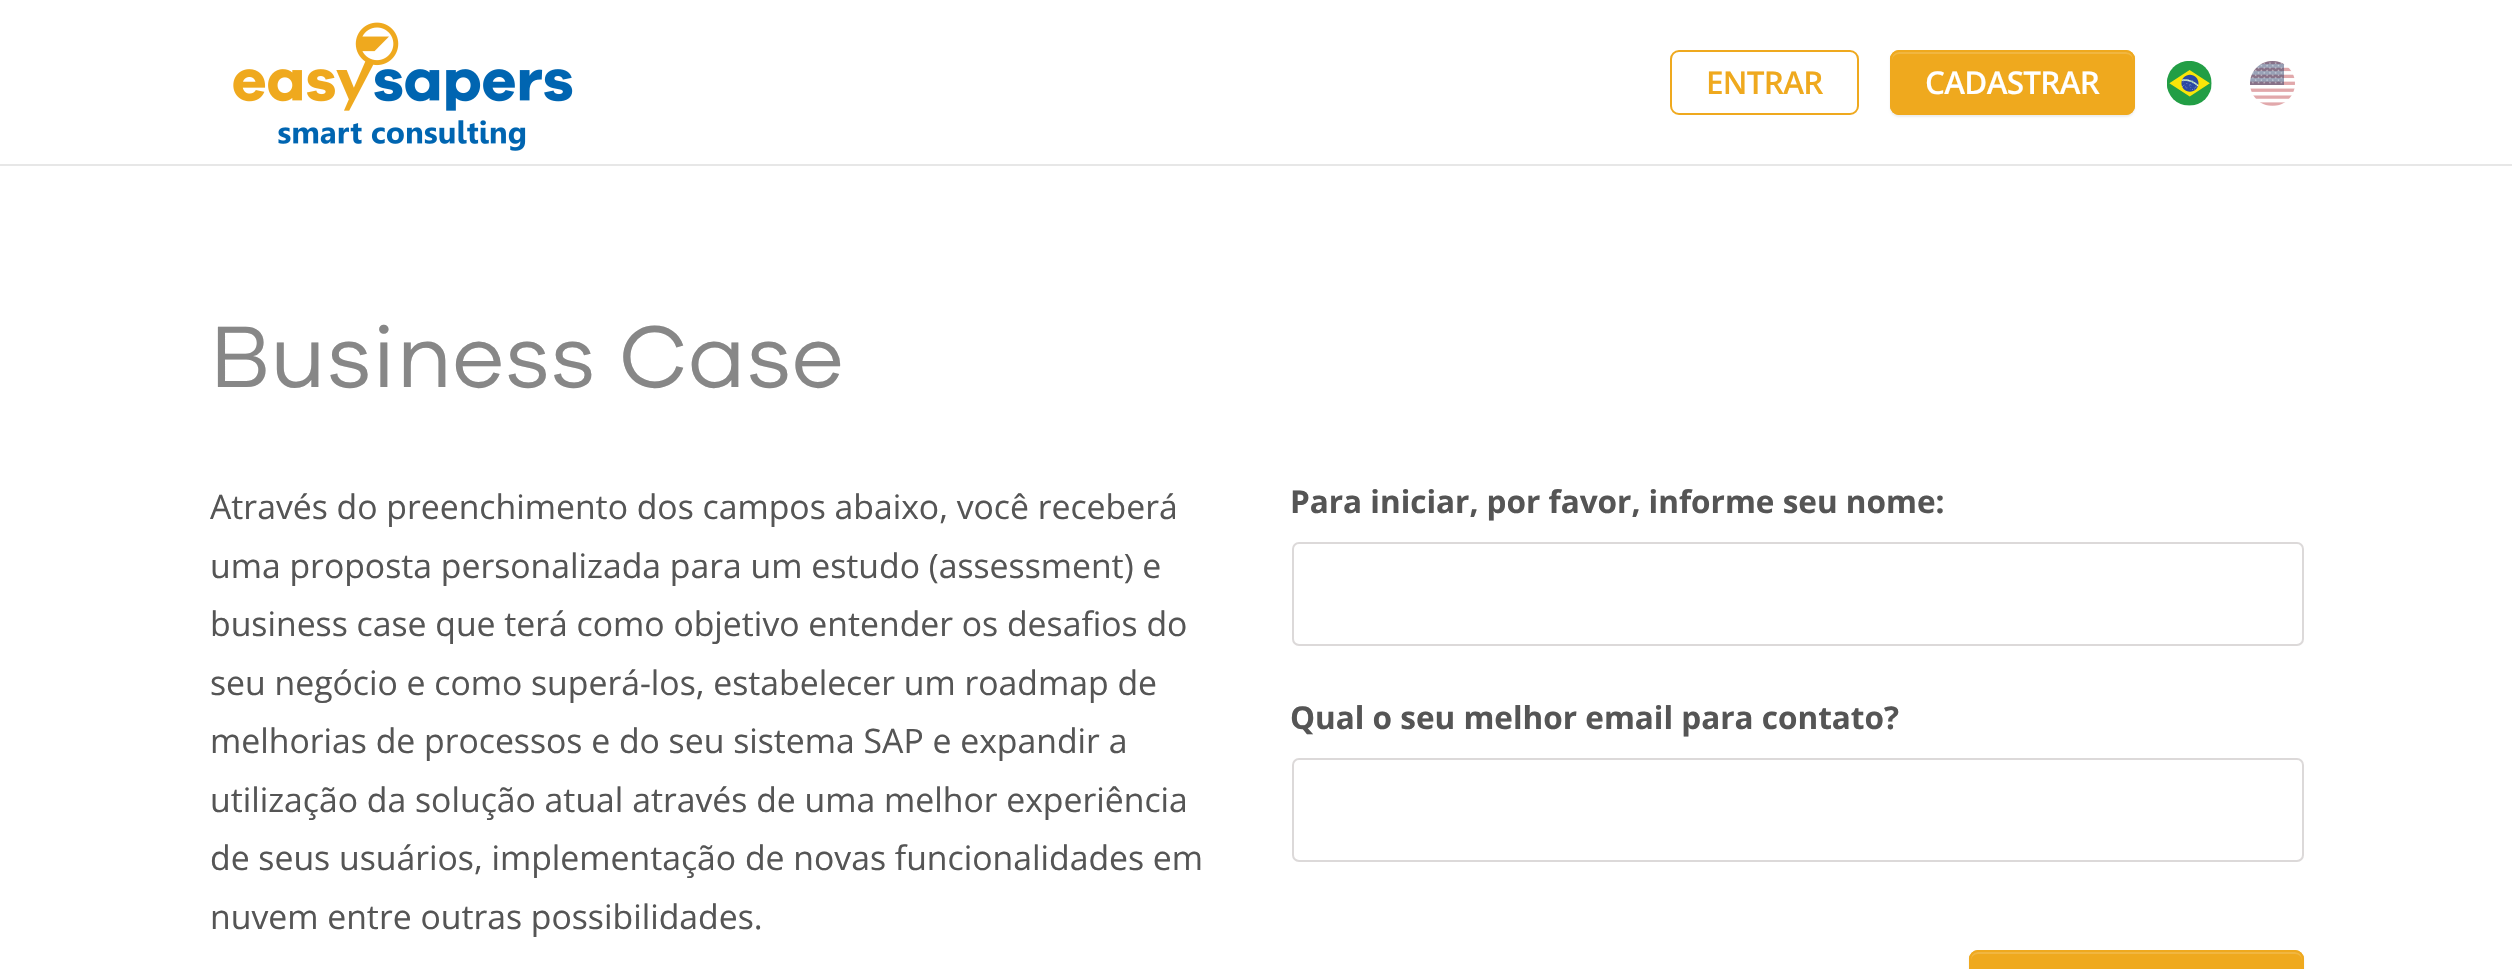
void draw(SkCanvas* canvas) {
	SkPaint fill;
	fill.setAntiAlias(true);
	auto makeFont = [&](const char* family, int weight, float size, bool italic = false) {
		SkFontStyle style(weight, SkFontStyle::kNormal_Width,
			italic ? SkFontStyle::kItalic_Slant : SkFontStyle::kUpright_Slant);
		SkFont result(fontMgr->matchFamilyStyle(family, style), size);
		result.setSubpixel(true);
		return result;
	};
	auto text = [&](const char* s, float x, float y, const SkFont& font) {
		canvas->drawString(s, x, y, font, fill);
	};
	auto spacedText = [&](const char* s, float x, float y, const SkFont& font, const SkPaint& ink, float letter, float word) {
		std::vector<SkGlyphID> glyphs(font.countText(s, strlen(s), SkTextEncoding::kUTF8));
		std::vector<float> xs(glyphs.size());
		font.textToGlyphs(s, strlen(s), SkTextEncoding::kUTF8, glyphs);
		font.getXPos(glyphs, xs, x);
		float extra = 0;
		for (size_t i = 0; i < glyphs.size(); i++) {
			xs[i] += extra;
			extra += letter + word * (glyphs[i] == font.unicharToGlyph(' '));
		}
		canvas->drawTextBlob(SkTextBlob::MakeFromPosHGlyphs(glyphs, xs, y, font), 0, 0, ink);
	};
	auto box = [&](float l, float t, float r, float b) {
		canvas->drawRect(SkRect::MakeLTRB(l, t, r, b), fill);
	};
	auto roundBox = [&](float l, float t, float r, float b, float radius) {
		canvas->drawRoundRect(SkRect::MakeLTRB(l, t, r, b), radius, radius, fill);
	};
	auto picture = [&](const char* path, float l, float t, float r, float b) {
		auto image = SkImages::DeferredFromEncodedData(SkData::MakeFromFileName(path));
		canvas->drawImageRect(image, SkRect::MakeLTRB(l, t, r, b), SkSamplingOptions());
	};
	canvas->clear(0xFFFFFFFF);
	fill.setColor(0xFFE7E7E7);
	box(0, 164, 2512, 166);
	picture("image0.png", 233, 22, 573, 151);
	fill.setStyle(SkPaint::kStroke_Style);
	fill.setStrokeWidth(2);
	fill.setColor(0xFFEFA91E);
	canvas->drawRoundRect(SkRect::MakeLTRB(1671, 51, 1858, 114), 8, 8, fill);
	fill.setStyle(SkPaint::kFill_Style);
	fill.setColor(0x12000000);
	fill.setMaskFilter(SkMaskFilter::MakeBlur(kNormal_SkBlurStyle, 1));
	canvas->drawRoundRect(SkRect::MakeLTRB(1890, 52, 2135, 117), 9, 9, fill);
	fill.setMaskFilter(nullptr);
	fill.setColor(0xFFEFA91E);
	roundBox(1890, 50, 2135, 115, 9);
	fill.setColor(0xFFF1B640);
	canvas->drawPath(SkPathBuilder().moveTo(1899, 54).lineTo(2126, 54).cubicTo(2130, 54, 2133, 57, 2133, 61).lineTo(2133, 59).cubicTo(2133, 55, 2130, 52, 2126, 52).lineTo(1899, 52).cubicTo(1895, 52, 1892, 55, 1892, 59).lineTo(1892, 61).cubicTo(1892, 57, 1895, 54, 1899, 54).close().detach(), fill);
	fill.setStyle(SkPaint::kStroke_Style);
	fill.setColor(0xFFEFA91E);
	canvas->drawRoundRect(SkRect::MakeLTRB(1891, 51, 2134, 114), 8, 8, fill);
	picture("image1.png", 2167, 61, 2212, 106);
	picture("image2.png", 2250, 61, 2295, 106);
	fill.setColor(0xFFDCD9D9);
	canvas->drawRoundRect(SkRect::MakeLTRB(1293, 543, 2303, 645), 6, 6, fill);
	canvas->drawRoundRect(SkRect::MakeLTRB(1293, 759, 2303, 861), 6, 6, fill);
	fill.setStyle(SkPaint::kFill_Style);
	fill.setColor(0x12000000);
	fill.setMaskFilter(SkMaskFilter::MakeBlur(kNormal_SkBlurStyle, 1));
	canvas->drawRoundRect(SkRect::MakeLTRB(1969, 952, 2304, 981), 9, 9, fill);
	fill.setMaskFilter(nullptr);
	fill.setColor(0xFFEFA91E);
	roundBox(1969, 950, 2304, 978, 9);
	fill.setColor(0xFFF1B640);
	canvas->drawPath(SkPathBuilder().moveTo(1978, 954).lineTo(2295, 954).cubicTo(2299, 954, 2302, 957, 2302, 961).lineTo(2302, 959).cubicTo(2302, 955, 2299, 952, 2295, 952).lineTo(1978, 952).cubicTo(1974, 952, 1971, 955, 1971, 959).lineTo(1971, 961).cubicTo(1971, 957, 1974, 954, 1978, 954).close().detach(), fill);
	fill.setStyle(SkPaint::kStroke_Style);
	fill.setColor(0xFFEFA91E);
	canvas->drawRoundRect(SkRect::MakeLTRB(1970, 951, 2303, 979), 8, 8, fill);
	auto font1 = makeFont("Open Sans", 600, 31.5f);
	fill.setStyle(SkPaint::kFill_Style);
	spacedText("ENTRAR", 1706, 94, font1, fill, -0.75f, 0);
	fill.setColor(0xFFFFFFFF);
	spacedText("CADASTRAR", 1925, 94, font1, fill, -0.75f, 0);
	auto font2 = makeFont("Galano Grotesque", 400, 90);
	fill.setColor(0xFF878787);
	text("Business Case", 210, 387, font2);
	auto font3 = makeFont("Open Sans", 400, 33.75f);
	fill.setColor(0xFF555555);
	text("Através do preenchimento dos campos abaixo, você receberá", 210, 519, font3);
	text("uma proposta personalizada para um estudo (assessment) e", 210, 578, font3);
	text("business case que terá como objetivo entender os desafios do", 210, 636, font3);
	text("seu negócio e como superá-los, estabelecer um roadmap de", 210, 695, font3);
	text("melhorias de processos e do seu sistema SAP e expandir a", 210, 753, font3);
	text("utilização da solução atual através de uma melhor experiência", 210, 812, font3);
	text("de seus usuários, implementação de novas funcionalidades em", 210, 870, font3);
	text("nuvem entre outras possibilidades.", 210, 929, font3);
	auto font4 = makeFont("Open Sans", 700, 31.5f);
	text("Para iniciar, por favor, informe seu nome:", 1290, 513, font4);
	text("Qual o seu melhor email para contato?", 1290, 729, font4);
}
